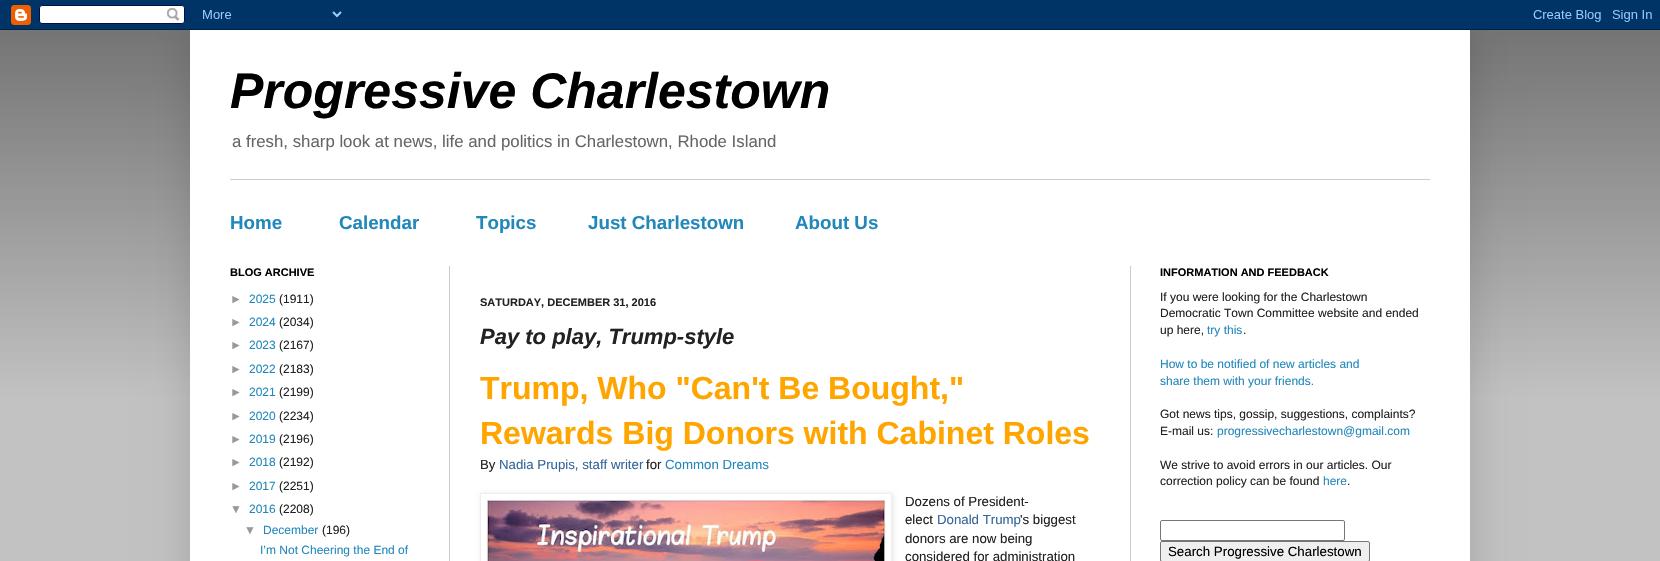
void draw(SkCanvas* canvas) {
	SkPaint fill;
	fill.setAntiAlias(true);
	auto makeFont = [&](const char* family, int weight, float size, bool italic = false) {
		SkFontStyle style(weight, SkFontStyle::kNormal_Width,
			italic ? SkFontStyle::kItalic_Slant : SkFontStyle::kUpright_Slant);
		SkFont result(fontMgr->matchFamilyStyle(family, style), size);
		result.setSubpixel(true);
		return result;
	};
	auto text = [&](const char* s, float x, float y, const SkFont& font) {
		canvas->drawString(s, x, y, font, fill);
	};
	auto box = [&](float l, float t, float r, float b) {
		canvas->drawRect(SkRect::MakeLTRB(l, t, r, b), fill);
	};
	auto picture = [&](const char* path, float l, float t, float r, float b) {
		auto image = SkImages::DeferredFromEncodedData(SkData::MakeFromFileName(path));
		canvas->drawImageRect(image, SkRect::MakeLTRB(l, t, r, b), SkSamplingOptions());
	};
	canvas->clear(0xFFC2C2C2);
	fill.setColor(0xFF666666);
	box(0, 30, 1660, 400);
	picture("image1.png", 0, 30, 1660, 400);
	fill.setColor(0x26000000);
	fill.setMaskFilter(SkMaskFilter::MakeBlur(kNormal_SkBlurStyle, 20));
	canvas->drawRect(SkRect::MakeLTRB(190, 30, 1470, 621), fill);
	fill.setMaskFilter(nullptr);
	picture("image0.png", 0, 0, 1660, 30);
	fill.setColor(0xFFFFFFFF);
	box(190, 30, 1470, 561);
	fill.setColor(0xFFCCCCCC);
	box(230, 179, 1430, 180);
	box(449, 266, 450, 561);
	box(1130, 266, 1131, 561);
	canvas->save();
	canvas->clipPath(SkPathBuilder(SkPathFillType::kEvenOdd).moveTo(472, 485).lineTo(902, 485).lineTo(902, 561).lineTo(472, 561).close().moveTo(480, 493).lineTo(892, 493).lineTo(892, 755).lineTo(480, 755).close().detach(), true);
	fill.setColor(0x1A000000);
	fill.setMaskFilter(SkMaskFilter::MakeBlur(kNormal_SkBlurStyle, 2.5f));
	canvas->drawRect(SkRect::MakeLTRB(481, 494, 893, 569), fill);
	fill.setMaskFilter(nullptr);
	canvas->restore();
	fill.setStyle(SkPaint::kStroke_Style);
	fill.setStrokeWidth(1);
	fill.setColor(0xFFEEEEEE);
	canvas->drawRect(SkRect::MakeLTRB(480.5f, 493.5f, 891.5f, 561.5f), fill);
	picture("image2.png", 486, 499, 886, 561);
	fill.setColor(0xFF767676);
	canvas->drawRoundRect(SkRect::MakeLTRB(1160.5f, 520.5f, 1344.5f, 540.5f), 1.5f, 1.5f, fill);
	fill.setStyle(SkPaint::kFill_Style);
	fill.setColor(0xFFEFEFEF);
	canvas->drawRoundRect(SkRect::MakeLTRB(1160.5f, 541.5f, 1369.5f, 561.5f), 1.5f, 1.5f, fill);
	fill.setStyle(SkPaint::kStroke_Style);
	fill.setColor(0xFF767676);
	canvas->drawRoundRect(SkRect::MakeLTRB(1160.5f, 541.5f, 1369.5f, 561.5f), 1.5f, 1.5f, fill);
	auto font1 = makeFont("Liberation Sans", 700, 50, true);
	fill.setStyle(SkPaint::kFill_Style);
	fill.setColor(0xFF000000);
	text("Progressive Charlestown", 230, 108, font1);
	auto font2 = makeFont("Liberation Sans", 400, 16.8f);
	fill.setColor(0xFF666666);
	text("a fresh, sharp look at news, life and politics in Charlestown, Rhode Island", 232, 147, font2);
	auto font3 = makeFont("Liberation Sans", 700, 18.75f);
	fill.setColor(0xFF2288BB);
	text("Home", 230, 229, font3);
	text("Calendar", 339, 229, font3);
	text("Topics", 476, 229, font3);
	text("Just Charlestown", 588, 229, font3);
	text("About Us", 795, 229, font3);
	auto font4 = makeFont("Liberation Sans", 700, 11);
	fill.setColor(0xFF000000);
	text("BLOG ARCHIVE", 230, 276, font4);
	auto font5 = makeFont("Liberation Sans", 400, 12);
	fill.setColor(0xFF999999);
	text("►", 230, 303, font5);
	fill.setColor(0xFF2288BB);
	text("2025", 249, 303, font5);
	fill.setColor(0xFF222222);
	text("(1911)", 279, 303, font5);
	fill.setColor(0xFF999999);
	text("►", 230, 326, font5);
	fill.setColor(0xFF2288BB);
	text("2024", 249, 326, font5);
	fill.setColor(0xFF222222);
	text("(2034)", 279, 326, font5);
	fill.setColor(0xFF999999);
	text("►", 230, 349, font5);
	fill.setColor(0xFF2288BB);
	text("2023", 249, 349, font5);
	fill.setColor(0xFF222222);
	text("(2167)", 279, 349, font5);
	fill.setColor(0xFF999999);
	text("►", 230, 373, font5);
	fill.setColor(0xFF2288BB);
	text("2022", 249, 373, font5);
	fill.setColor(0xFF222222);
	text("(2183)", 279, 373, font5);
	fill.setColor(0xFF999999);
	text("►", 230, 396, font5);
	fill.setColor(0xFF2288BB);
	text("2021", 249, 396, font5);
	fill.setColor(0xFF222222);
	text("(2199)", 279, 396, font5);
	fill.setColor(0xFF999999);
	text("►", 230, 420, font5);
	fill.setColor(0xFF2288BB);
	text("2020", 249, 420, font5);
	fill.setColor(0xFF222222);
	text("(2234)", 279, 420, font5);
	fill.setColor(0xFF999999);
	text("►", 230, 443, font5);
	fill.setColor(0xFF2288BB);
	text("2019", 249, 443, font5);
	fill.setColor(0xFF222222);
	text("(2196)", 279, 443, font5);
	fill.setColor(0xFF999999);
	text("►", 230, 466, font5);
	fill.setColor(0xFF2288BB);
	text("2018", 249, 466, font5);
	fill.setColor(0xFF222222);
	text("(2192)", 279, 466, font5);
	fill.setColor(0xFF999999);
	text("►", 230, 490, font5);
	fill.setColor(0xFF2288BB);
	text("2017", 249, 490, font5);
	fill.setColor(0xFF222222);
	text("(2251)", 279, 490, font5);
	fill.setColor(0xFF999999);
	text("▼", 230, 513, font5);
	fill.setColor(0xFF2288BB);
	text("2016", 249, 513, font5);
	fill.setColor(0xFF222222);
	text("(2208)", 279, 513, font5);
	fill.setColor(0xFF999999);
	text("▼", 244, 534, font5);
	fill.setColor(0xFF2288BB);
	text("December", 263, 534, font5);
	fill.setColor(0xFF222222);
	text("(196)", 322, 534, font5);
	fill.setColor(0xFF2288BB);
	text("I’m Not Cheering the End of", 260, 554, font5);
	fill.setColor(0xFF222222);
	text("SATURDAY, DECEMBER 31, 2016", 480, 306, font4);
	auto font6 = makeFont("Liberation Sans", 700, 22, true);
	text("Pay to play, Trump-style", 480, 344, font6);
	auto font7 = makeFont("Liberation Sans", 700, 32);
	fill.setColor(0xFFFFA500);
	text("Trump, Who \"Can't Be Bought,\"", 480, 399, font7);
	text("Rewards Big Donors with Cabinet Roles", 480, 444, font7);
	auto font8 = makeFont("Liberation Sans", 400, 13.25f);
	fill.setColor(0xFF222222);
	text("By", 480, 469, font8);
	fill.setColor(0xFF336699);
	text("Nadia Prupis, staff writer", 499, 469, font8);
	fill.setColor(0xFF222222);
	text("for", 646, 469, font8);
	fill.setColor(0xFF2288BB);
	text("Common Dreams", 665, 469, font8);
	fill.setColor(0xFF222222);
	text("Dozens of President-", 905, 506, font8);
	text("elect", 905, 524, font8);
	fill.setColor(0xFF336699);
	text("Donald Trump", 937, 524, font8);
	fill.setColor(0xFF222222);
	text("'s biggest", 1020, 524, font8);
	text("donors are now being", 905, 543, font8);
	text("considered for administration", 905, 561, font8);
	fill.setColor(0xFF000000);
	text("INFORMATION AND FEEDBACK", 1160, 276, font4);
	fill.setColor(0xFF222222);
	text("If you were looking for the Charlestown", 1160, 301, font5);
	text("Democratic Town Committee website and ended", 1160, 317, font5);
	text("up here,", 1160, 334, font5);
	fill.setColor(0xFF2288BB);
	text("try this", 1207, 334, font5);
	fill.setColor(0xFF222222);
	text(".", 1243, 334, font5);
	fill.setColor(0xFF2288BB);
	text("How to be notified of new articles and", 1160, 368, font5);
	text("share them with your friends.", 1160, 385, font5);
	fill.setColor(0xFF222222);
	text("Got news tips, gossip, suggestions, complaints?", 1160, 418, font5);
	text("E-mail us:", 1160, 435, font5);
	fill.setColor(0xFF2288BB);
	text("progressivecharlestown@gmail.com", 1217, 435, font5);
	fill.setColor(0xFF222222);
	text("We strive to avoid errors in our articles. Our", 1160, 469, font5);
	text("correction policy can be found", 1160, 485, font5);
	fill.setColor(0xFF2288BB);
	text("here", 1323, 485, font5);
	fill.setColor(0xFF222222);
	text(".", 1347, 485, font5);
	auto font9 = makeFont("Liberation Sans", 400, 13.3f);
	fill.setColor(0xFF000000);
	text("Search Progressive Charlestown", 1168, 556, font9);
}
